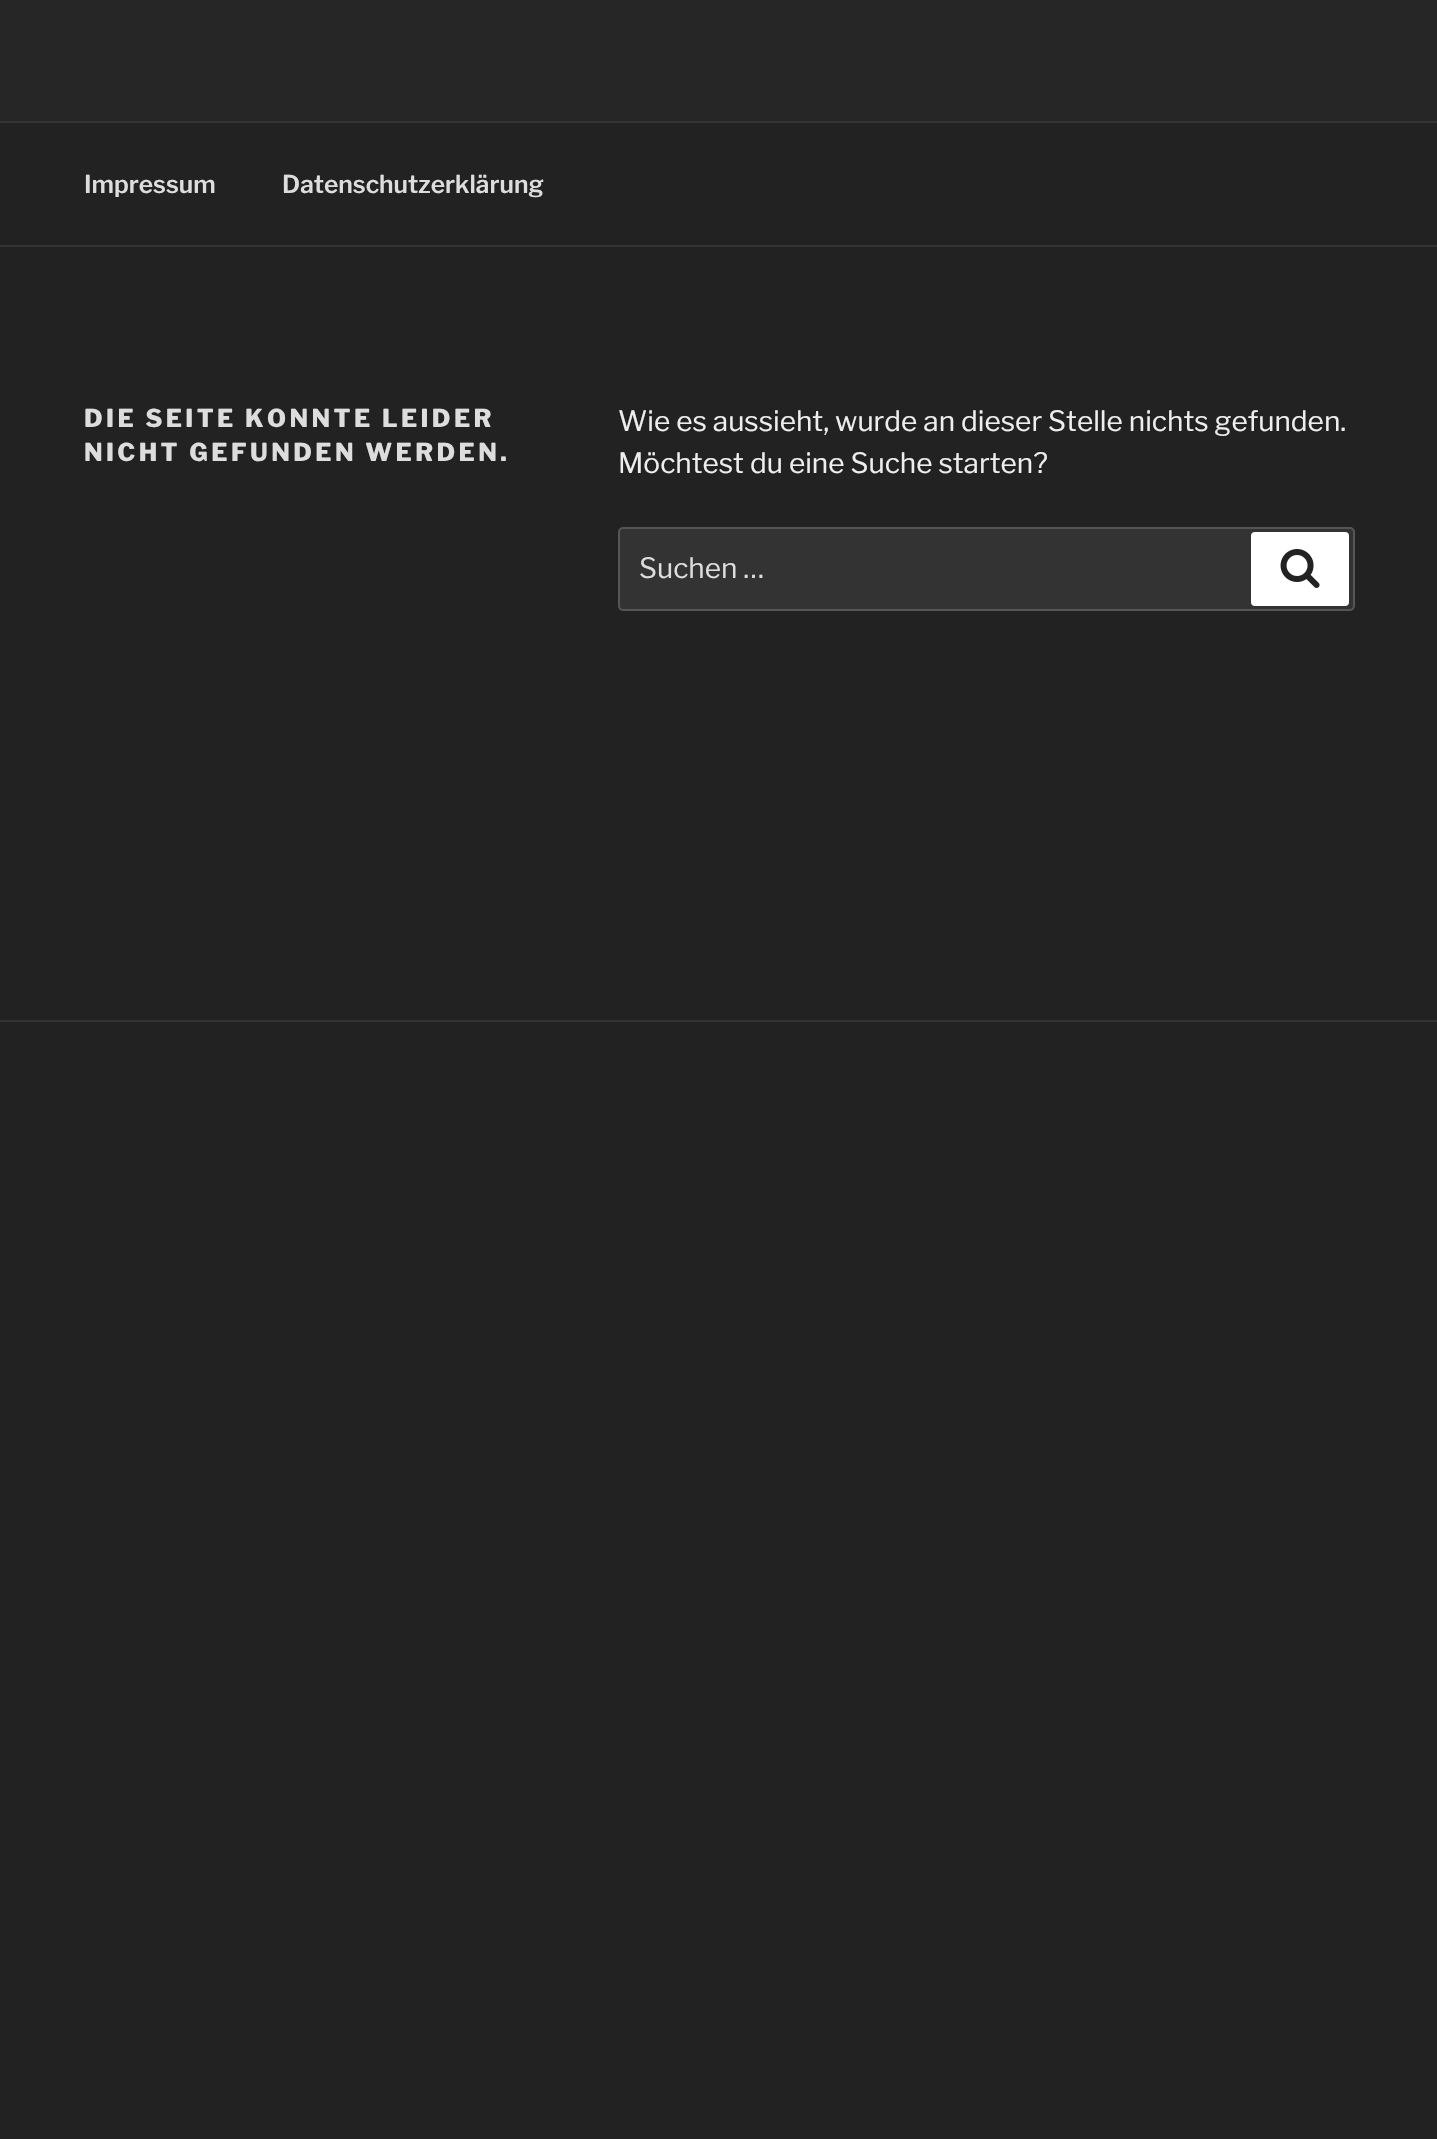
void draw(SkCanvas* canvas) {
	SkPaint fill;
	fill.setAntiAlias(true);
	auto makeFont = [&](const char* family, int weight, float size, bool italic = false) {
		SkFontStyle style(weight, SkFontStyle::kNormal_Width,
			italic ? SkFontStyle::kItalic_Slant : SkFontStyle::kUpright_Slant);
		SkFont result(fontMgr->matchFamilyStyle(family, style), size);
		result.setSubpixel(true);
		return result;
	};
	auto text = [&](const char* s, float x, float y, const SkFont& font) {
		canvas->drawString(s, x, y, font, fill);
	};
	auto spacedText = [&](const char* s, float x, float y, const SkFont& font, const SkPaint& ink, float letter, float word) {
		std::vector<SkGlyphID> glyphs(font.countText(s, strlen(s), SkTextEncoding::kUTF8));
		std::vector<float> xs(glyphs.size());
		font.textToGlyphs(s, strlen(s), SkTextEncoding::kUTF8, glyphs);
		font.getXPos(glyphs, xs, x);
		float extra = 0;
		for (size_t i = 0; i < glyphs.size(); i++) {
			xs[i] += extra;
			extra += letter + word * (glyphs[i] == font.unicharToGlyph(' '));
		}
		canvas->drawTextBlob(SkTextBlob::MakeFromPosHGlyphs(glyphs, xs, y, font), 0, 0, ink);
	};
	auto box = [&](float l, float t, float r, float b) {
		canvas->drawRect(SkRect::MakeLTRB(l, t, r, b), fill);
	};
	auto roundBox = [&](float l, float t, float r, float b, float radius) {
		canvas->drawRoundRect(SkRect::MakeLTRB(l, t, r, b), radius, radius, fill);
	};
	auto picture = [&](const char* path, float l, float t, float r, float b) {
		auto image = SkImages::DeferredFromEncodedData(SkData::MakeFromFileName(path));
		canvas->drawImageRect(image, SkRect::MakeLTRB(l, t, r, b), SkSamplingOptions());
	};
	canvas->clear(0xFF222222);
	fill.setColor(0xFF262626);
	box(0, 0, 1437, 121);
	fill.setColor(0xFF333333);
	box(0, 121, 1437, 123);
	box(0, 245, 1437, 247);
	canvas->drawRoundRect(SkRect::MakeLTRB(619, 528, 1354, 610), 4, 4, fill);
	fill.setStyle(SkPaint::kStroke_Style);
	fill.setStrokeWidth(2);
	fill.setColor(0xFF555555);
	canvas->drawRoundRect(SkRect::MakeLTRB(619, 528, 1354, 610), 4, 4, fill);
	fill.setStyle(SkPaint::kFill_Style);
	fill.setColor(0xFFFFFFFF);
	roundBox(1251, 532, 1349, 606, 4);
	picture("image0.png", 1280, 549, 1320, 588);
	fill.setColor(0xFF333333);
	box(0, 1020, 1437, 1022);
	auto font1 = makeFont("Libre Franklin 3", 100, 24.5f);
	fill.setColor(0xFFDDDDDD);
	text("Impressum", 84, 193, font1);
	text("Datenschutzerklärung", 282, 193, font1);
	auto font2 = makeFont("Libre Franklin", 100, 24.5f);
	spacedText("DIE SEITE KONNTE LEIDER", 84, 427, font2, fill, 3.4f, 0);
	spacedText("NICHT GEFUNDEN WERDEN.", 84, 461, font2, fill, 3.4f, 0);
	auto font3 = makeFont("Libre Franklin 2", 100, 28);
	fill.setColor(0xFFEEEEEE);
	text("Wie es aussieht, wurde an dieser Stelle nichts gefunden.", 618, 431, font3);
	text("Möchtest du eine Suche starten?", 618, 473, font3);
	fill.setColor(0xFFDDDDDD);
	text("Suchen …", 639, 578, font3);
}
